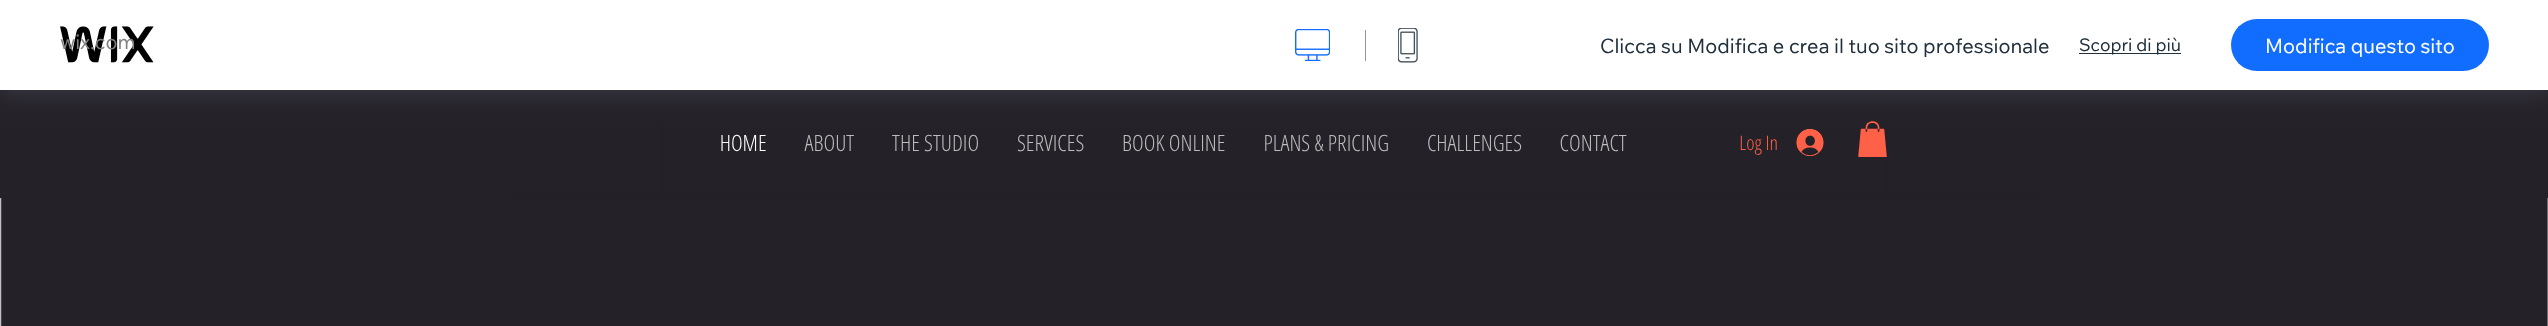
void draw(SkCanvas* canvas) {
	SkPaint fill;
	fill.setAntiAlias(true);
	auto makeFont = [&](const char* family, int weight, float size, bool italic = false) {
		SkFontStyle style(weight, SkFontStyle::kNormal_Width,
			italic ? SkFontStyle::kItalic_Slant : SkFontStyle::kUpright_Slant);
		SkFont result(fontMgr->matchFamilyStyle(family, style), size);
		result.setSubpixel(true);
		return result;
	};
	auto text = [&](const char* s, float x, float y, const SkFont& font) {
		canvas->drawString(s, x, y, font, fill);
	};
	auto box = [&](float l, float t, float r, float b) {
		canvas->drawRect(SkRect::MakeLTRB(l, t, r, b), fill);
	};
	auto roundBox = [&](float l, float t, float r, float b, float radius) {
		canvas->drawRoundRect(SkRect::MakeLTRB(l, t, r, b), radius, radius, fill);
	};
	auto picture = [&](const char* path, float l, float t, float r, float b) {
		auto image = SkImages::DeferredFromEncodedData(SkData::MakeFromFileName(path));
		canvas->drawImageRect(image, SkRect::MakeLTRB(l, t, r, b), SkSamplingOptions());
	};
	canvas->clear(0xFFFFFFFF);
	picture("image3.png", 0, 90, 2548, 326);
	fill.setColor(0x3381A2B6);
	fill.setMaskFilter(SkMaskFilter::MakeBlur(kNormal_SkBlurStyle, 11));
	canvas->drawRect(SkRect::MakeLTRB(0, 3, 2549, 93), fill);
	fill.setMaskFilter(nullptr);
	fill.setColor(0xFFFFFFFF);
	box(0, 0, 2548, 90);
	picture("image0.png", 60, 26, 154, 63);
	picture("image1.png", 1295, 29, 1330, 61);
	fill.setColor(0xFF90989E);
	box(1365, 30, 1366, 61);
	picture("image2.png", 1398, 28, 1418, 63);
	fill.setColor(0xFF20303C);
	box(2079, 53, 2181, 54);
	fill.setColor(0xFF116DFF);
	roundBox(2231, 19, 2489, 71, 26);
	auto font1 = makeFont("Wix Madefor Text", 400, 20);
	fill.setColor(0xFF818181);
	text("wix.com", 60, 49, font1);
	fill.setColor(0xFF20303C);
	text("Clicca su Modifica e crea il tuo sito professionale", 1600, 53, font1);
	auto font2 = makeFont("Wix Madefor Text", 400, 17.5f);
	text("Scopri di più", 2079, 51, font2);
	fill.setColor(0xFFFFFFFF);
	text("Modifica questo sito", 2265, 53, font1);
}
